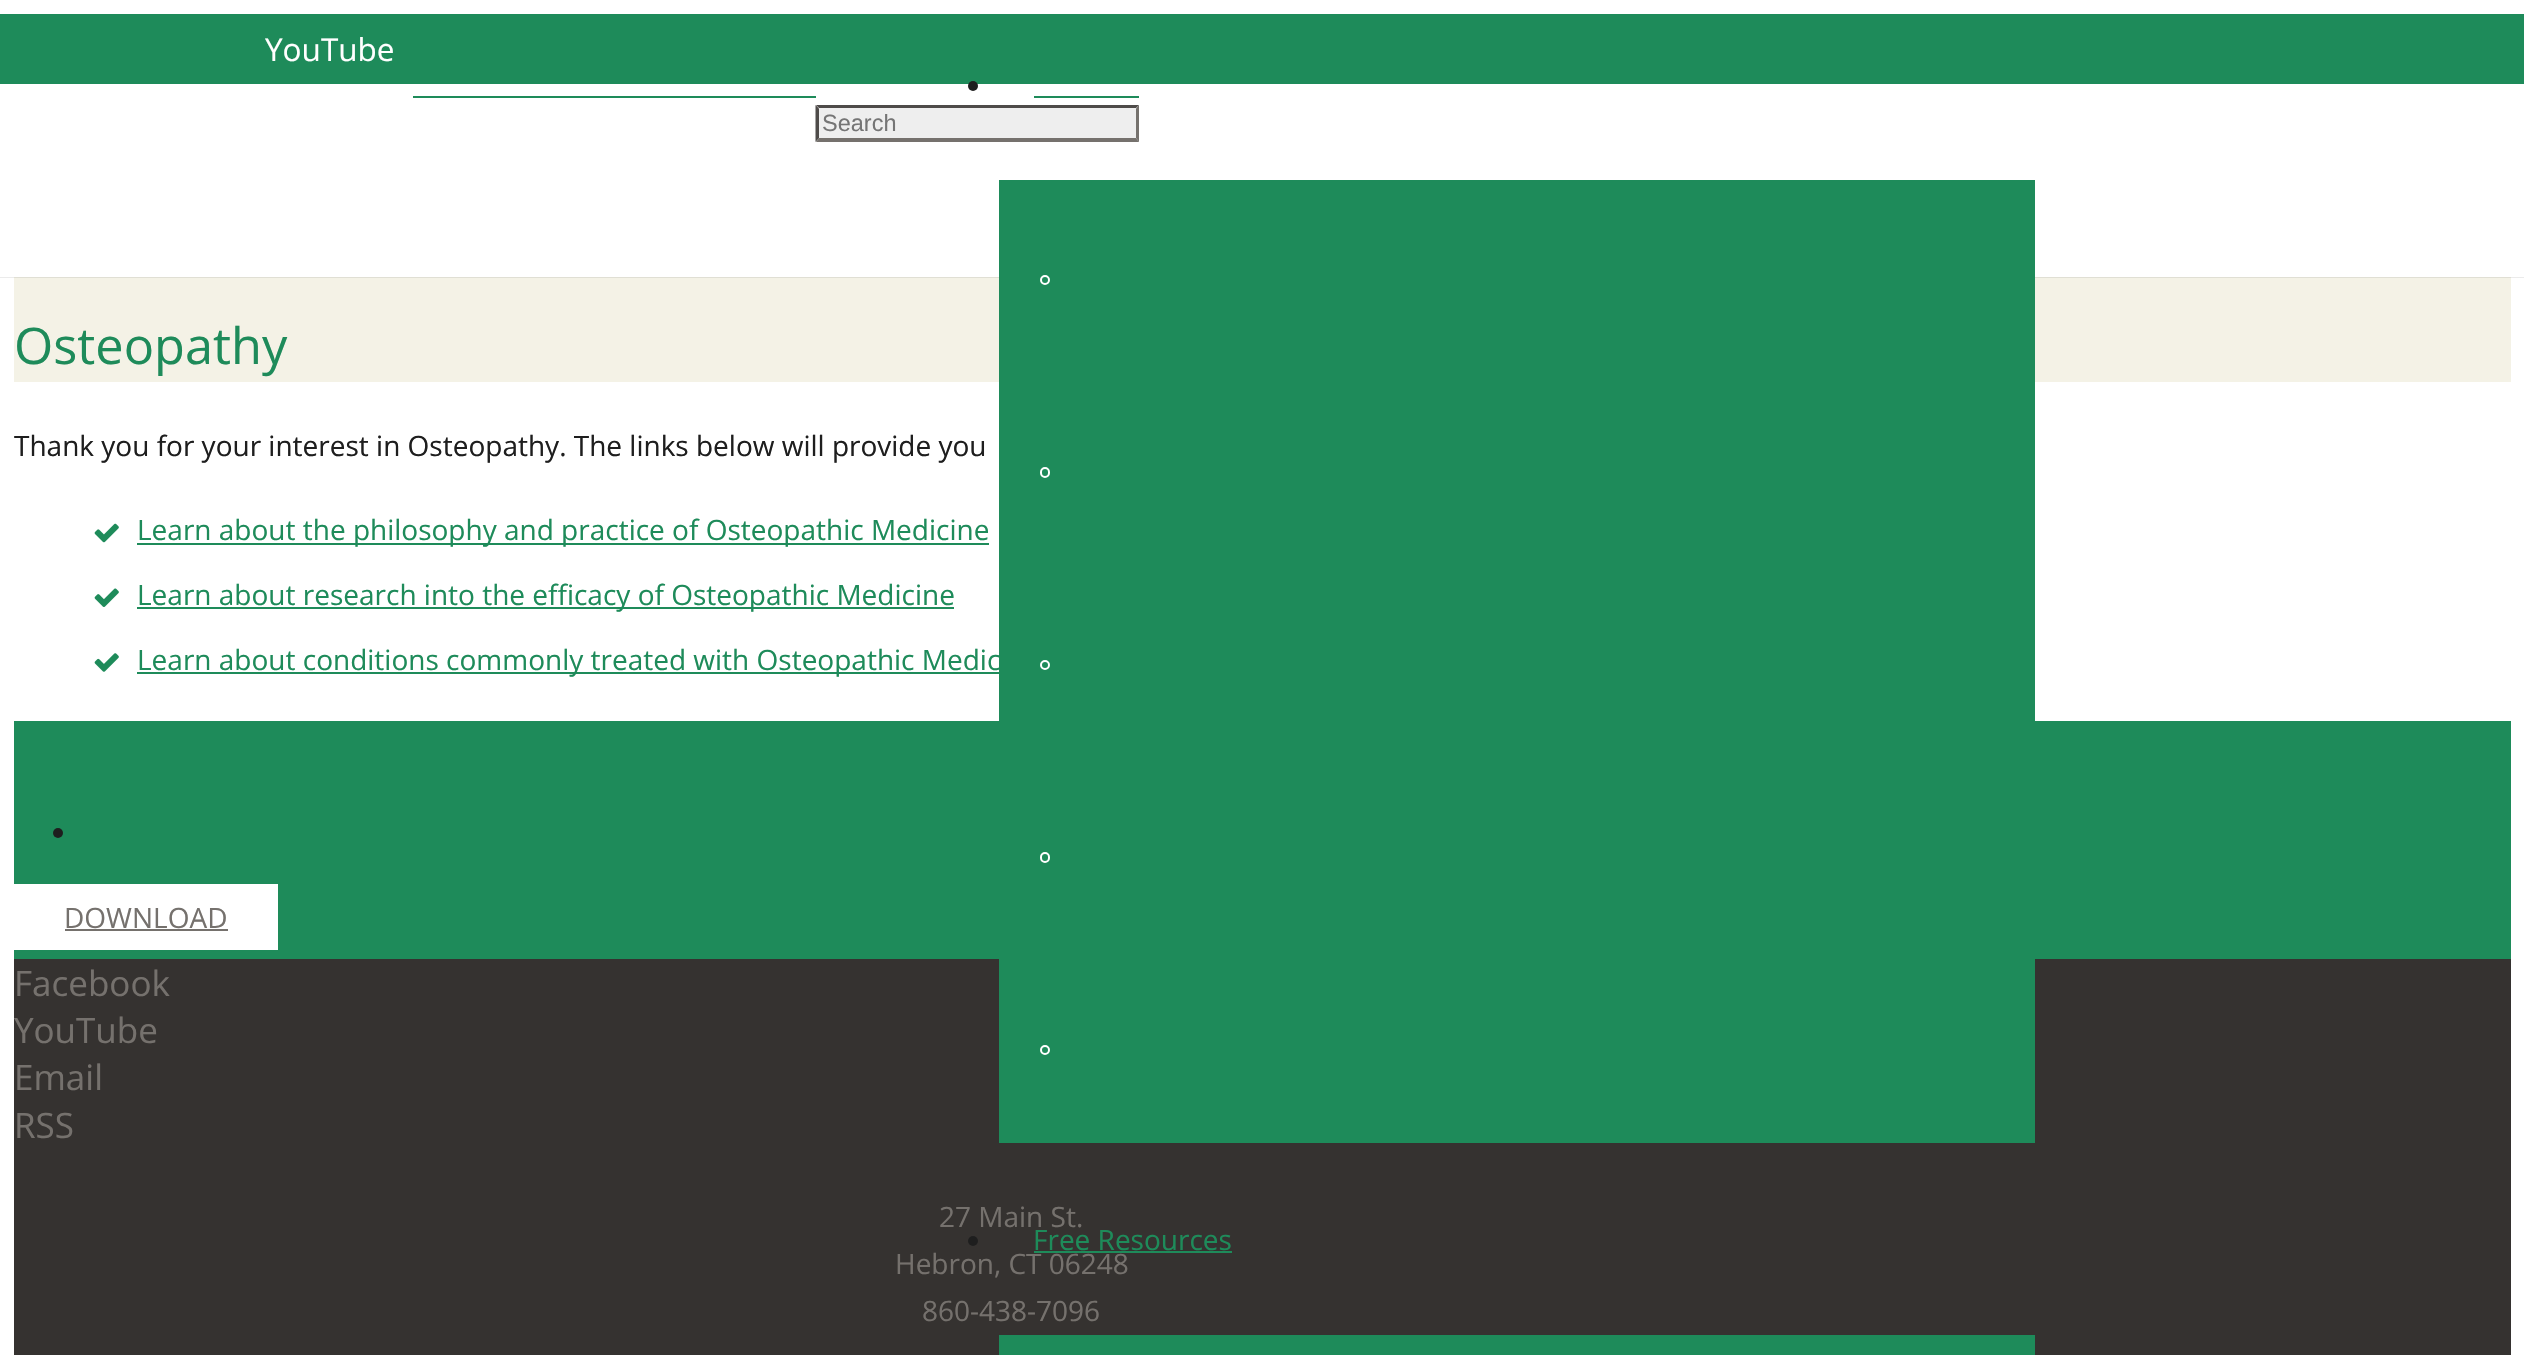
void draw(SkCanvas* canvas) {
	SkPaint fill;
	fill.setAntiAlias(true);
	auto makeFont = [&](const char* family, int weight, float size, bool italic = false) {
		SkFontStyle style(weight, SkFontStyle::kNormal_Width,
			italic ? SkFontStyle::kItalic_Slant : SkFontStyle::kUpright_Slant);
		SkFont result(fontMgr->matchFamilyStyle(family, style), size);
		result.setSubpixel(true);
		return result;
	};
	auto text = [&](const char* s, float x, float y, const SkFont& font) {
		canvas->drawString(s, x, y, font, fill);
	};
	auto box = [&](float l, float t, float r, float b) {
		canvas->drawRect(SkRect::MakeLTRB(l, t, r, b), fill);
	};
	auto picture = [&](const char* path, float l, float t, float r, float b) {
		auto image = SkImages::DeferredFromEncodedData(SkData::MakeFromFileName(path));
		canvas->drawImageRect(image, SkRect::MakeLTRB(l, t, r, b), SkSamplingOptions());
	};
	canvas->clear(0xFFFFFFFF);
	fill.setColor(0xFFEBEBEB);
	box(0, 277, 2524, 278);
	fill.setColor(0xFF1E8B5A);
	box(0, 14, 2524, 84);
	box(413, 96, 816, 98);
	fill.setColor(0xFFEEEEEE);
	box(816, 105, 1139, 142);
	fill.setColor(0xFF4E4B49);
	canvas->drawPath(SkPathBuilder().moveTo(816, 105).lineTo(1139, 105).lineTo(1136, 108).lineTo(819, 108).close().detach(), fill);
	fill.setColor(0xFF75716D);
	canvas->drawPath(SkPathBuilder().moveTo(1139, 105).lineTo(1139, 142).lineTo(1136, 138).lineTo(1136, 108.5f).close().detach(), fill);
	canvas->drawPath(SkPathBuilder().moveTo(1139, 142).lineTo(816, 142).lineTo(819, 138).lineTo(1136, 138).close().detach(), fill);
	fill.setColor(0xFF4E4B49);
	canvas->drawPath(SkPathBuilder().moveTo(815.5f, 142).lineTo(815.5f, 105).lineTo(819, 108.5f).lineTo(819, 138).close().detach(), fill);
	fill.setColor(0xFF1E1E1E);
	canvas->drawCircle(973, 86, 5, fill);
	fill.setColor(0xFF1E8B5A);
	box(1034, 96, 1139, 98);
	fill.setColor(0xFFF4F2E6);
	box(14, 278, 2511, 382);
	fill.setColor(0xFFE0DFD4);
	box(14, 277, 2511, 278);
	fill.setColor(0xFF1E8B5A);
	box(14, 721, 2511, 959);
	fill.setColor(0xFF353230);
	box(14, 959, 2511, 1355);
	fill.setColor(0xFF1E8B5A);
	box(999, 180, 2035, 1143);
	fill.setStyle(SkPaint::kStroke_Style);
	fill.setStrokeWidth(2);
	fill.setColor(0xFFFFFFFF);
	canvas->drawCircle(1045, 280, 4, fill);
	canvas->drawRoundRect(SkRect::MakeLTRB(1041, 468, 1049, 477), 4, 4, fill);
	canvas->drawCircle(1045, 665, 4, fill);
	canvas->drawRoundRect(SkRect::MakeLTRB(1041, 853, 1049, 862), 4, 4, fill);
	canvas->drawCircle(1045, 1050, 4, fill);
	fill.setStyle(SkPaint::kFill_Style);
	fill.setColor(0xFF1E1E1E);
	canvas->drawCircle(973, 1241, 5, fill);
	fill.setColor(0xFF1E8B5A);
	box(999, 1335, 2035, 1355);
	picture("image0.png", 94, 523, 119, 543);
	box(137, 543, 989, 545);
	picture("image1.png", 94, 588, 119, 607);
	box(137, 607, 954, 609);
	picture("image2.png", 94, 653, 119, 672);
	box(137, 672, 999, 674);
	fill.setColor(0xFF1E1E1E);
	canvas->drawCircle(58, 833, 5, fill);
	fill.setColor(0xFFFFFFFF);
	box(14, 884, 278, 950);
	fill.setColor(0xFF75716D);
	box(65, 929, 228, 931);
	auto font1 = makeFont("Open Sans", 400, 31.5f);
	fill.setColor(0xFFFFFFFF);
	text("YouTube", 265, 61, font1);
	auto font2 = makeFont("Liberation Sans", 400, 23.5f);
	fill.setColor(0xFF757575);
	text("Search", 822, 131, font2);
	auto font3 = makeFont("Open Sans", 400, 28);
	fill.setColor(0xFF1E8B5A);
	text("Free Resources", 1033, 1250, font3);
	auto font4 = makeFont("Open Sans", 400, 50.5f);
	text("Osteopathy", 14, 364, font4);
	fill.setColor(0xFF1E1E1E);
	text("Thank you for your interest in Osteopathy. The links below will provide you", 14, 456, font3);
	fill.setColor(0xFF1E8B5A);
	text("Learn about the philosophy and practice of Osteopathic Medicine", 137, 540, font3);
	text("Learn about research into the efficacy of Osteopathic Medicine", 137, 605, font3);
	text("Learn about conditions commonly treated with Osteopathic Medic", 137, 670, font3);
	fill.setColor(0xFF75716D);
	text("DOWNLOAD", 64, 928, font3);
	auto font5 = makeFont("Open Sans", 400, 35);
	text("Facebook", 14, 996, font5);
	text("YouTube", 14, 1043, font5);
	text("Email", 14, 1090, font5);
	text("RSS", 14, 1138, font5);
	text("27 Main St.", 939, 1227, font3);
	text("Hebron, CT 06248", 895, 1274, font3);
	fill.setColor(0xFF1E8B5A);
	box(1034, 1251, 1232, 1253);
	fill.setColor(0xFF75716D);
	text("860-438-7096", 922, 1321, font3);
}
